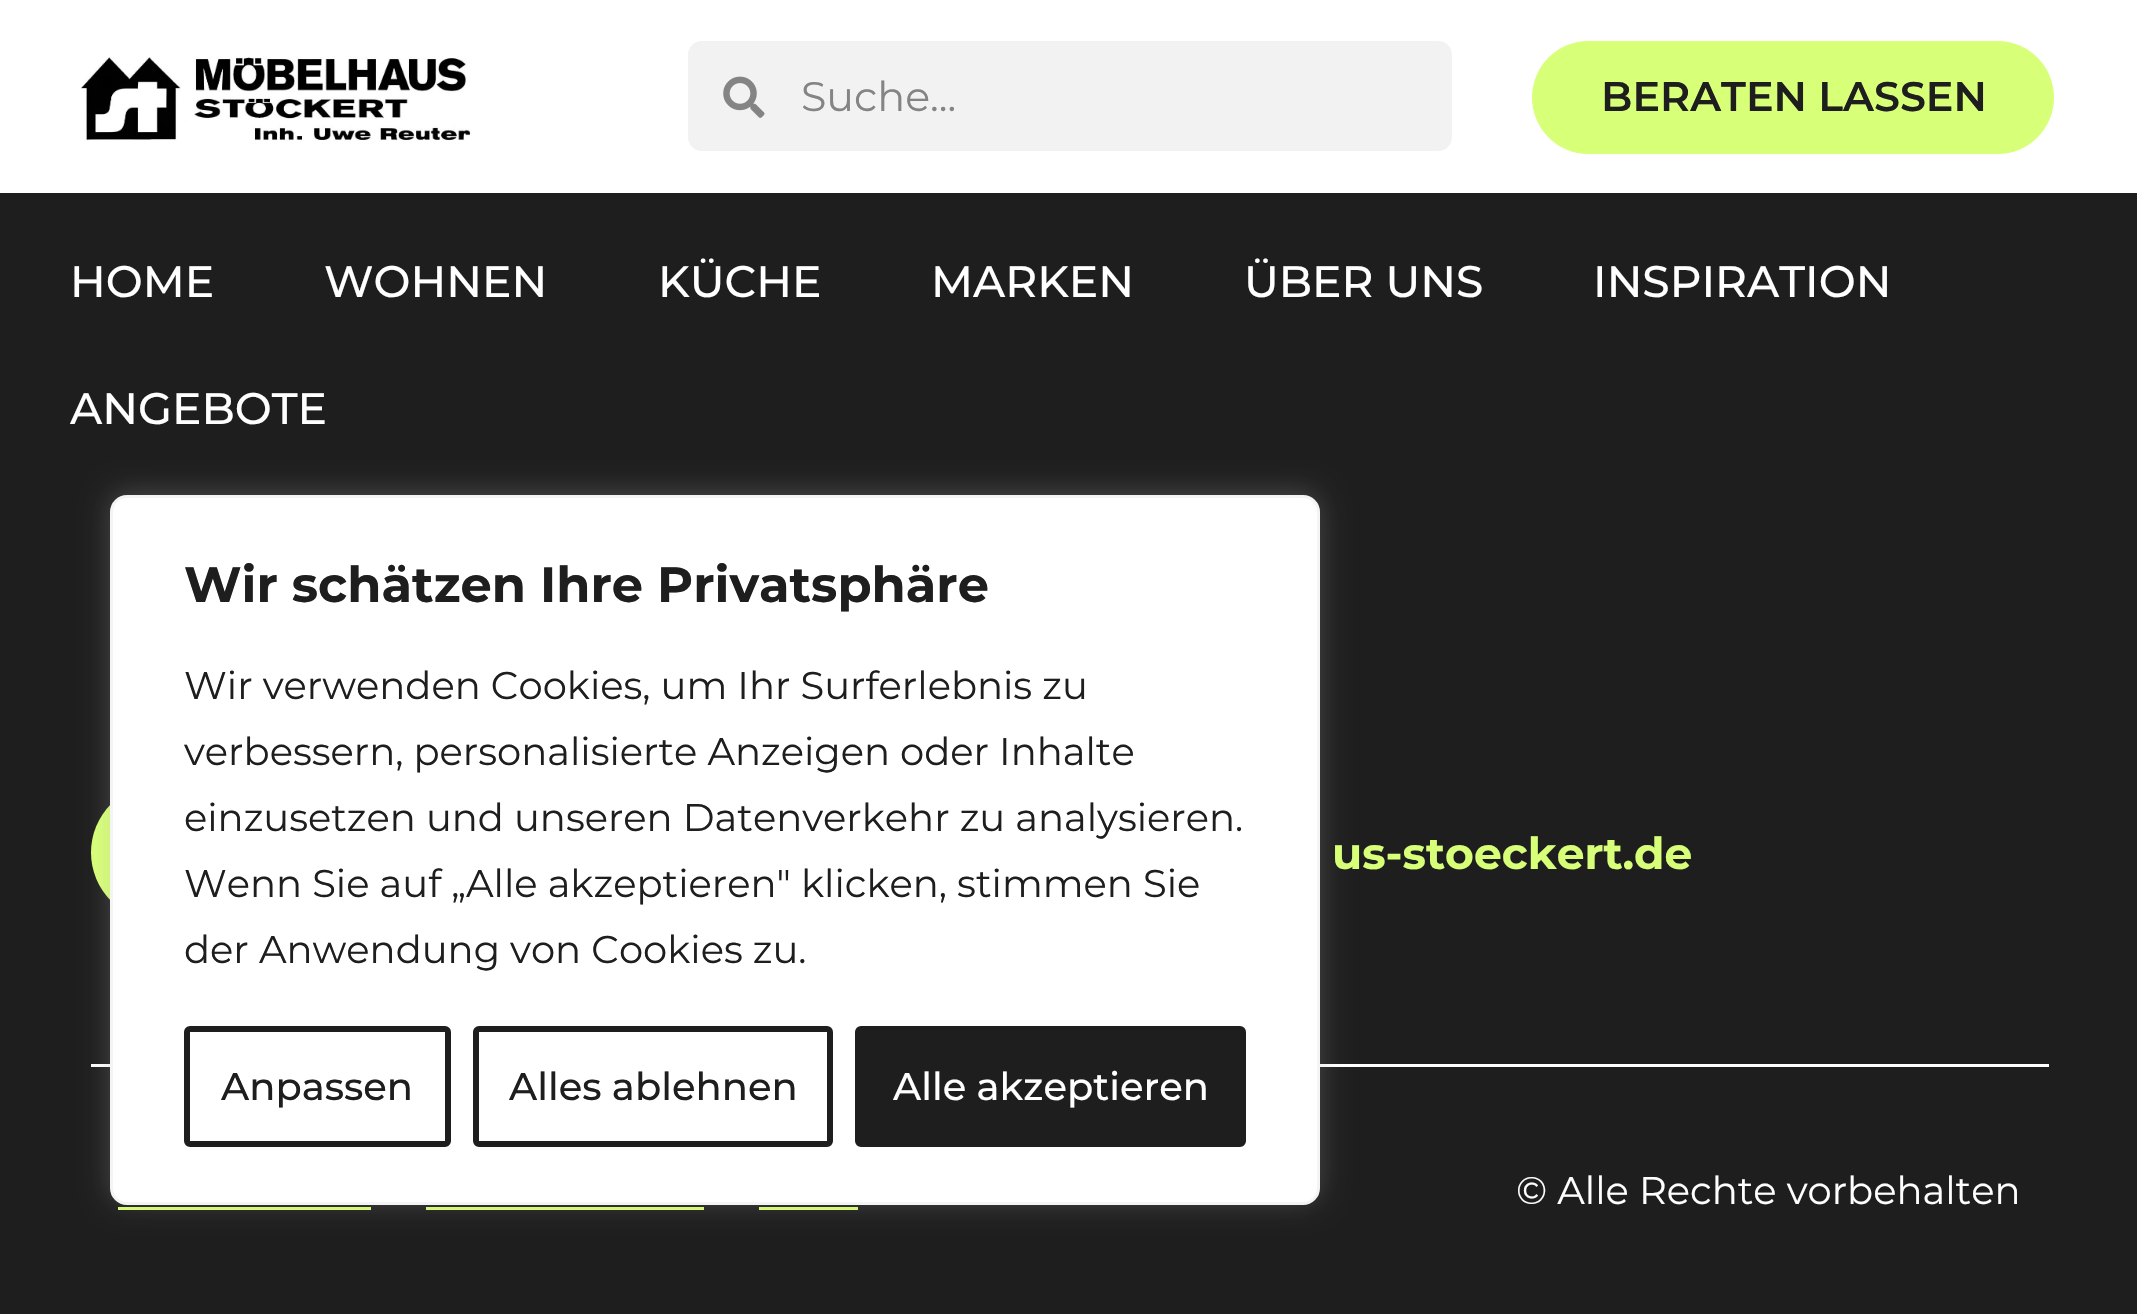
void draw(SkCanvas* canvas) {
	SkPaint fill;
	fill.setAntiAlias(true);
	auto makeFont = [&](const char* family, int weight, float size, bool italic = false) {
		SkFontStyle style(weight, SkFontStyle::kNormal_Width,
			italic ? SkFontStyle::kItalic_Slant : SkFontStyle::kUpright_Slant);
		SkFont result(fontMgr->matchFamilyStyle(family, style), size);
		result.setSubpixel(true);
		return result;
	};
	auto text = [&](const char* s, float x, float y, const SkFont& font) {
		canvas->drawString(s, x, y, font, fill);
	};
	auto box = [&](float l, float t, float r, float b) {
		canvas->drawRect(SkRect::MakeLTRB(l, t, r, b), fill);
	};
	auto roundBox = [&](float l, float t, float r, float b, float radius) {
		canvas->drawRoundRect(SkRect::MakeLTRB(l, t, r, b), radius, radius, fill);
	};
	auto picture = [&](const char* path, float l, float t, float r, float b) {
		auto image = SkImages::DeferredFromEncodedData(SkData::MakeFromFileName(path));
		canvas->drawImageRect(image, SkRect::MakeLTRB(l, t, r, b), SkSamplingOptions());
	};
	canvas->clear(0xFF1E1E1E);
	fill.setColor(0xFFFFFFFF);
	box(0, 0, 2137, 193);
	picture("image0.png", 81, 57, 471, 141);
	fill.setColor(0xFFF2F2F2);
	roundBox(688, 41, 1452, 151, 14);
	picture("image1.png", 723, 76, 765, 118);
	fill.setColor(0xFFD7FF77);
	roundBox(1532, 41, 2054, 154, 56.5f);
	canvas->drawCircle(159.5f, 852.5f, 68.5f, fill);
	fill.setColor(0xFFFFFFFF);
	box(91, 1064, 2049, 1067);
	fill.setColor(0xFFD7FF77);
	box(118, 1207, 371, 1210);
	box(426, 1207, 704, 1210);
	box(759, 1207, 858, 1210);
	fill.setColor(0x4DACABAB);
	fill.setMaskFilter(SkMaskFilter::MakeBlur(kNormal_SkBlurStyle, 14));
	canvas->drawRoundRect(SkRect::MakeLTRB(110, 492, 1320, 1202), 17, 17, fill);
	fill.setMaskFilter(nullptr);
	fill.setColor(0xFFFFFFFF);
	canvas->drawRoundRect(SkRect::MakeLTRB(111.5f, 496.5f, 1318.5f, 1203.5f), 15.5f, 15.5f, fill);
	fill.setStyle(SkPaint::kStroke_Style);
	fill.setStrokeWidth(3);
	fill.setColor(0xFFF4F4F4);
	canvas->drawRoundRect(SkRect::MakeLTRB(111.5f, 496.5f, 1318.5f, 1203.5f), 15.5f, 15.5f, fill);
	fill.setStrokeWidth(6);
	fill.setColor(0xFF1E1E1E);
	canvas->drawRoundRect(SkRect::MakeLTRB(187, 1029, 448, 1144), 3, 3, fill);
	canvas->drawRoundRect(SkRect::MakeLTRB(476, 1029, 830, 1144), 3, 3, fill);
	fill.setStyle(SkPaint::kFill_Style);
	canvas->drawRoundRect(SkRect::MakeLTRB(858, 1029, 1243, 1144), 3, 3, fill);
	fill.setStyle(SkPaint::kStroke_Style);
	canvas->drawRoundRect(SkRect::MakeLTRB(858, 1029, 1243, 1144), 3, 3, fill);
	auto font1 = makeFont("Montserrat", 400, 41.25f);
	fill.setStyle(SkPaint::kFill_Style);
	fill.setColor(0xFF848484);
	text("Suche...", 801, 111, font1);
	auto font2 = makeFont("Montserrat", 600, 41.25f);
	fill.setColor(0xFF1E1E1E);
	text("BERATEN LASSEN", 1601, 111, font2);
	auto font3 = makeFont("Montserrat", 500, 44);
	fill.setColor(0xFFFFFFFF);
	text("HOME", 70, 297, font3);
	text("WOHNEN", 324, 297, font3);
	text("KÜCHE", 658, 297, font3);
	text("MARKEN", 931, 297, font3);
	text("ÜBER UNS", 1244, 297, font3);
	text("INSPIRATION", 1593, 297, font3);
	text("ANGEBOTE", 70, 424, font3);
	auto font4 = makeFont("Montserrat", 700, 49.5f);
	fill.setColor(0xFF1E1E1E);
	text("Wir schätzen Ihre Privatsphäre", 184, 602, font4);
	auto font5 = makeFont("Montserrat", 400, 38.5f);
	text("Wir verwenden Cookies, um Ihr Surferlebnis zu", 184, 699, font5);
	text("verbessern, personalisierte Anzeigen oder Inhalte", 184, 765, font5);
	text("einzusetzen und unseren Datenverkehr zu analysieren.", 184, 831, font5);
	text("Wenn Sie auf „Alle akzeptieren\" klicken, stimmen Sie", 184, 897, font5);
	text("der Anwendung von Cookies zu.", 184, 963, font5);
	auto font6 = makeFont("Montserrat", 500, 38.5f);
	text("Anpassen", 221, 1100, font6);
	text("Alles ablehnen", 509, 1100, font6);
	fill.setColor(0xFFFFFFFF);
	text("Alle akzeptieren", 893, 1100, font6);
	auto font7 = makeFont("Montserrat", 700, 44);
	fill.setColor(0xFFD7FF77);
	text("us-stoeckert.de", 1332, 869, font7);
	fill.setColor(0xFFFFFFFF);
	text("© Alle Rechte vorbehalten", 1516, 1204, font5);
}
